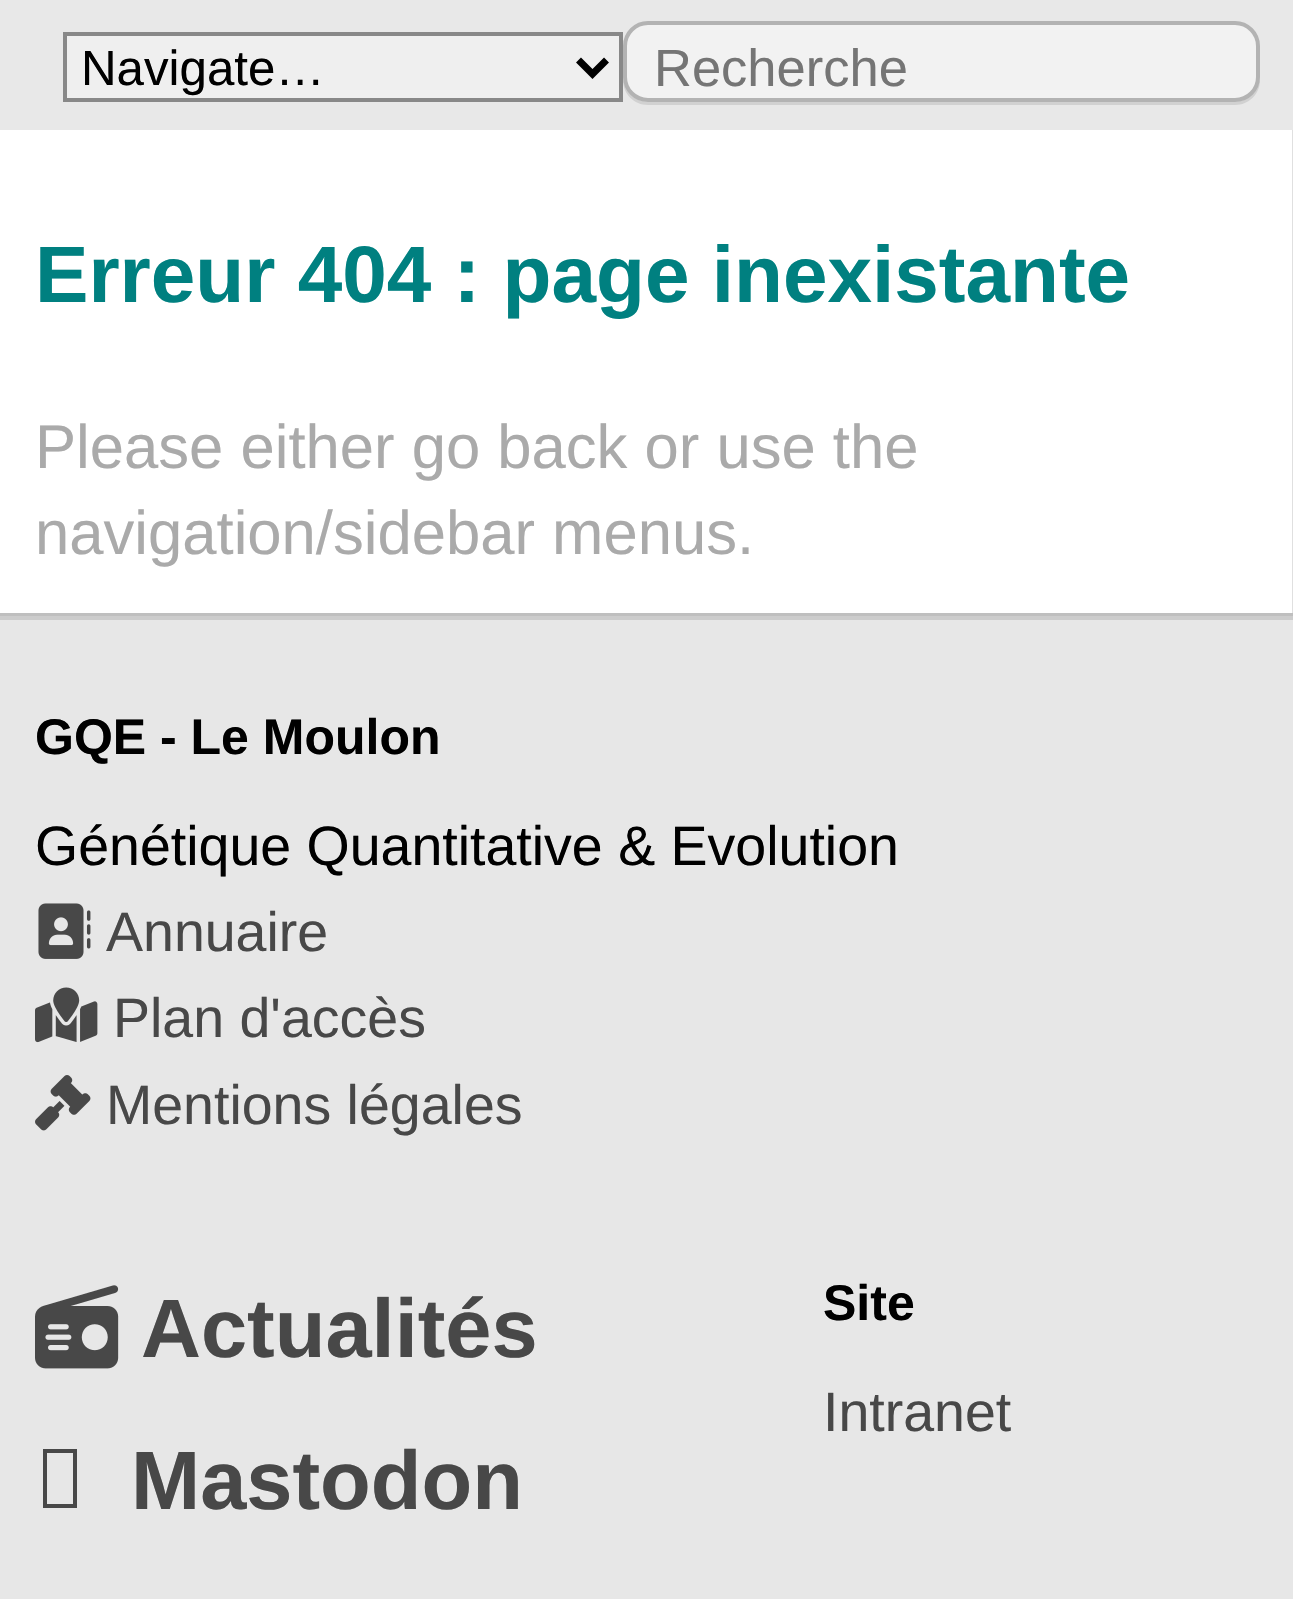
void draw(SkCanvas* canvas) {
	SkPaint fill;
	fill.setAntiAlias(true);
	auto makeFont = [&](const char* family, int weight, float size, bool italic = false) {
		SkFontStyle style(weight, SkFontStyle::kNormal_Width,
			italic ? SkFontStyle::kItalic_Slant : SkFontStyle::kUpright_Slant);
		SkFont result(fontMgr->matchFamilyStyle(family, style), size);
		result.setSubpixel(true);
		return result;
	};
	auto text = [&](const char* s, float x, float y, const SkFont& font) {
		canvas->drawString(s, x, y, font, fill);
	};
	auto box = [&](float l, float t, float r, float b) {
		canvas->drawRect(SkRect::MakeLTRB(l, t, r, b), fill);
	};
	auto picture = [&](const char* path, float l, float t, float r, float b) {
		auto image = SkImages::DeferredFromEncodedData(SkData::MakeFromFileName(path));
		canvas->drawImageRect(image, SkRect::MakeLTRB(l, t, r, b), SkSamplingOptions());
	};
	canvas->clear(0xFFBFBFBF);
	fill.setColor(0xFFE8E8E8);
	box(0, 0, 1293, 130);
	fill.setColor(0xFFEFEFEF);
	canvas->drawRect(SkRect::MakeLTRB(65, 34, 621, 100), fill);
	fill.setStyle(SkPaint::kStroke_Style);
	fill.setStrokeWidth(4);
	fill.setColor(0xFF888888);
	canvas->drawRect(SkRect::MakeLTRB(65, 34, 621, 100), fill);
	fill.setStrokeWidth(7);
	fill.setColor(0xFF000000);
	canvas->drawPath(SkPathBuilder().moveTo(578.5f, 60).lineTo(592.5f, 74).lineTo(606.5f, 60).detach(), fill);
	fill.setStyle(SkPaint::kFill_Style);
	fill.setColor(0xFFD1D1D1);
	canvas->drawPath(SkPathBuilder().moveTo(623, 75).lineTo(623, 80).cubicTo(623, 94, 634, 105, 648, 105).lineTo(1235, 105).cubicTo(1249, 105, 1260, 94, 1260, 80).lineTo(1260, 75).cubicTo(1260, 90, 1248, 102, 1234, 102).lineTo(649, 102).cubicTo(635, 102, 623, 90, 623, 75).close().detach(), fill);
	fill.setColor(0xFFF2F2F2);
	canvas->drawRoundRect(SkRect::MakeLTRB(625, 23, 1258, 100), 23, 23, fill);
	fill.setStyle(SkPaint::kStroke_Style);
	fill.setStrokeWidth(4);
	fill.setColor(0xFFB3B3B3);
	canvas->drawRoundRect(SkRect::MakeLTRB(625, 23, 1258, 100), 23, 23, fill);
	fill.setStyle(SkPaint::kFill_Style);
	fill.setColor(0xFFFFFFFF);
	box(0, 130, 1292, 613);
	fill.setColor(0xFFE0E0E0);
	box(1292, 130, 1293, 613);
	fill.setColor(0xFFCCCCCC);
	box(0, 616, 1293, 620);
	fill.setColor(0xFFE7E7E7);
	box(0, 620, 1293, 1599);
	picture("image0.png", 38, 903, 91, 959);
	picture("image1.png", 35, 987, 98, 1043);
	picture("image2.png", 35, 1075, 91, 1131);
	picture("image3.png", 35, 1285, 119, 1369);
	fill.setColor(0xFF484848);
	canvas->drawPath(SkPathBuilder().moveTo(43, 1508).lineTo(43, 1449).lineTo(77, 1449).lineTo(77, 1508).close().moveTo(47, 1504).lineTo(73, 1504).lineTo(73, 1453).lineTo(47, 1453).close().detach(), fill);
	auto font1 = makeFont("Liberation Sans", 400, 49.25f);
	fill.setColor(0xFF000000);
	text("Navigate…", 81, 85, font1);
	auto font2 = makeFont("Liberation Sans", 400, 52.5f);
	fill.setColor(0xFF757575);
	text("Recherche", 654, 86, font2);
	auto font3 = makeFont("Liberation Sans", 700, 80.1f);
	fill.setColor(0xFF008080);
	text("Erreur 404 : page inexistante", 35, 302, font3);
	auto font4 = makeFont("Liberation Sans", 400, 61.6f);
	fill.setColor(0xFFAAAAAA);
	text("Please either go back or use the", 35, 468, font4);
	text("navigation/sidebar menus.", 35, 554, font4);
	auto font5 = makeFont("Liberation Sans", 700, 50);
	fill.setColor(0xFF000000);
	text("GQE - Le Moulon", 35, 754, font5);
	auto font6 = makeFont("Liberation Sans", 400, 55.5f);
	text("Génétique Quantitative & Evolution", 35, 865, font6);
	fill.setColor(0xFF484848);
	text("Annuaire", 106, 951, font6);
	text("Plan d'accès", 113, 1037, font6);
	text("Mentions légales", 106, 1124, font6);
	auto font7 = makeFont("Liberation Sans", 700, 83);
	text("Actualités", 141, 1357, font7);
	text("Mastodon", 131, 1509, font7);
	fill.setColor(0xFF000000);
	text("Site", 823, 1320, font5);
	fill.setColor(0xFF484848);
	text("Intranet", 823, 1431, font6);
}
